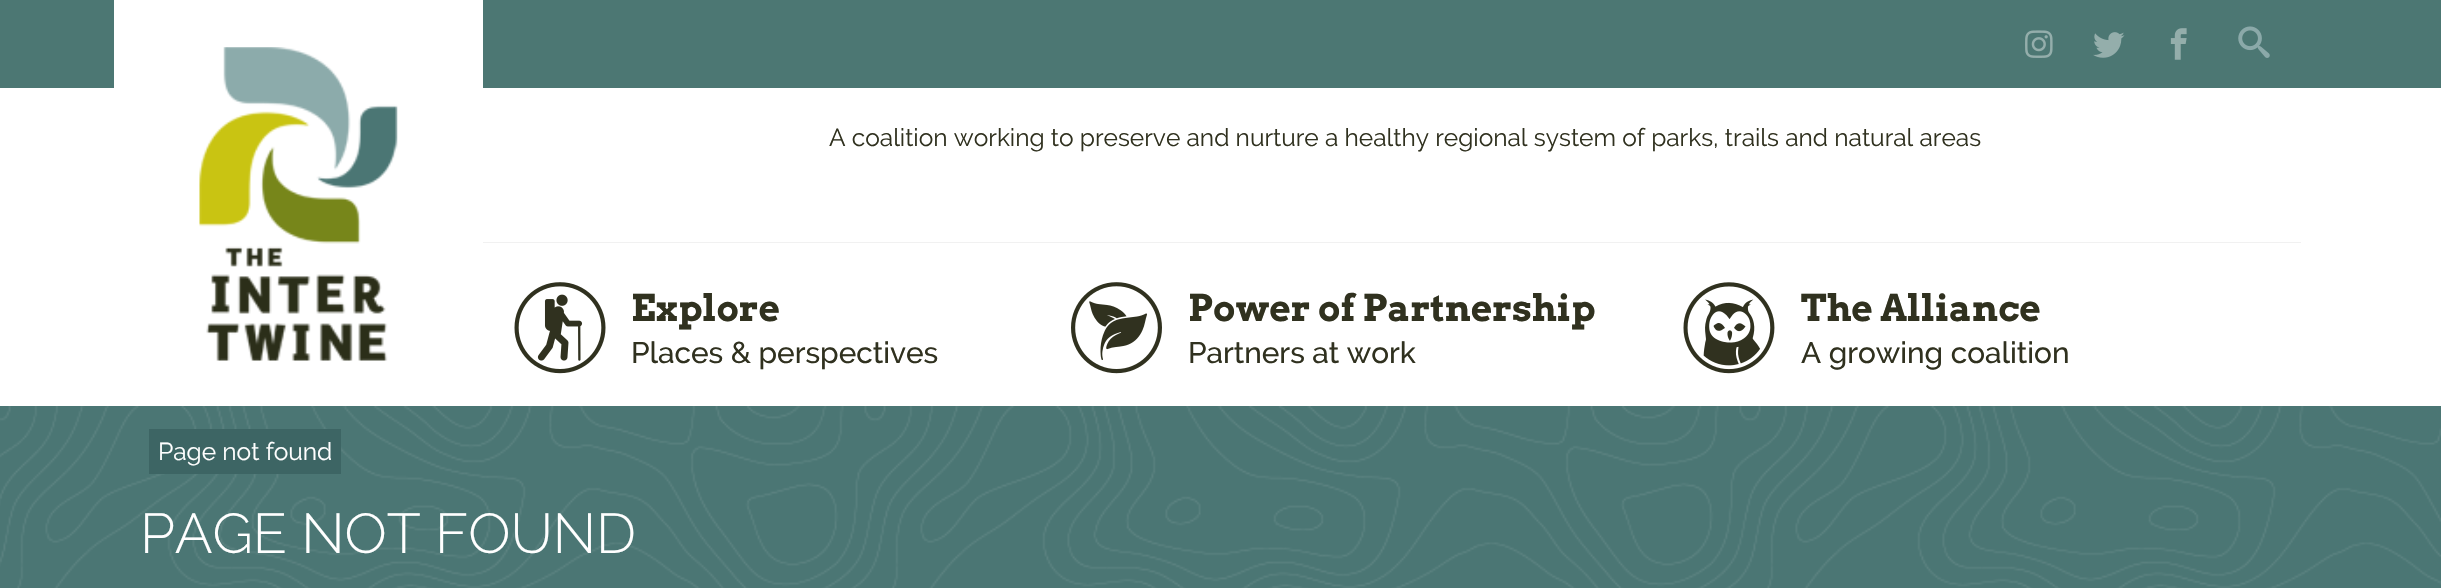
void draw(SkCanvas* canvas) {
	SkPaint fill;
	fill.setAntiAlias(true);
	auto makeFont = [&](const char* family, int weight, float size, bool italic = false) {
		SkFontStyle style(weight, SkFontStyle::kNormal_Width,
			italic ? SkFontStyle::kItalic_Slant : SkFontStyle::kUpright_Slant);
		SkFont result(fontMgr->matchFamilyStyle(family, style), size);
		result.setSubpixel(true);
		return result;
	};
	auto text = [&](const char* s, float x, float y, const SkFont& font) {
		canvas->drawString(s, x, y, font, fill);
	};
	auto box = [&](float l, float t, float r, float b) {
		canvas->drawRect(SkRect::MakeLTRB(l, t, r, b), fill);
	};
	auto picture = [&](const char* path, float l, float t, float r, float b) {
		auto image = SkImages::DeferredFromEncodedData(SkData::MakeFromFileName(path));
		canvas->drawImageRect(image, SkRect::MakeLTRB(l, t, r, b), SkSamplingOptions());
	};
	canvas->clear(0xFFFFFFFF);
	fill.setColor(0xFF4C7773);
	box(0, 0, 2441, 88);
	picture("image0.png", 2025, 30, 2053, 58);
	picture("image1.png", 2093, 32, 2125, 58);
	picture("image2.png", 2170, 28, 2187, 60);
	picture("image3.png", 2238, 26, 2270, 58);
	fill.setColor(0xFFFFFFFF);
	box(114, 0, 483, 88);
	picture("image4.png", 199, 47, 398, 361);
	fill.setColor(0xFFF1F1F1);
	box(483, 242, 2301, 243);
	picture("image5.png", 514, 282, 606, 374);
	picture("image6.png", 1071, 282, 1162, 374);
	picture("image7.png", 1683, 282, 1775, 374);
	picture("image8.png", 0, 406, 2441, 588);
	fill.setColor(0xFF3D6564);
	box(149, 429, 341, 474);
	auto font1 = makeFont("Raleway", 400, 24.5f);
	fill.setColor(0xFF30311F);
	text("A coalition working to preserve and nurture a healthy regional system of parks, trails and natural areas", 829, 146, font1);
	auto font2 = makeFont("Arvo", 700, 36.75f);
	text("Explore", 631, 321, font2);
	auto font3 = makeFont("Raleway", 500, 29.75f);
	text("Places & perspectives", 631, 363, font3);
	text("Power of Partnership", 1188, 321, font2);
	text("Partners at work", 1188, 363, font3);
	text("The Alliance", 1801, 321, font2);
	text("A growing coalition", 1801, 363, font3);
	fill.setColor(0xFFFFFFFF);
	text("Page not found", 158, 460, font1);
	auto font4 = makeFont("Raleway", 300, 56);
	text("PAGE NOT FOUND", 140, 553, font4);
}
